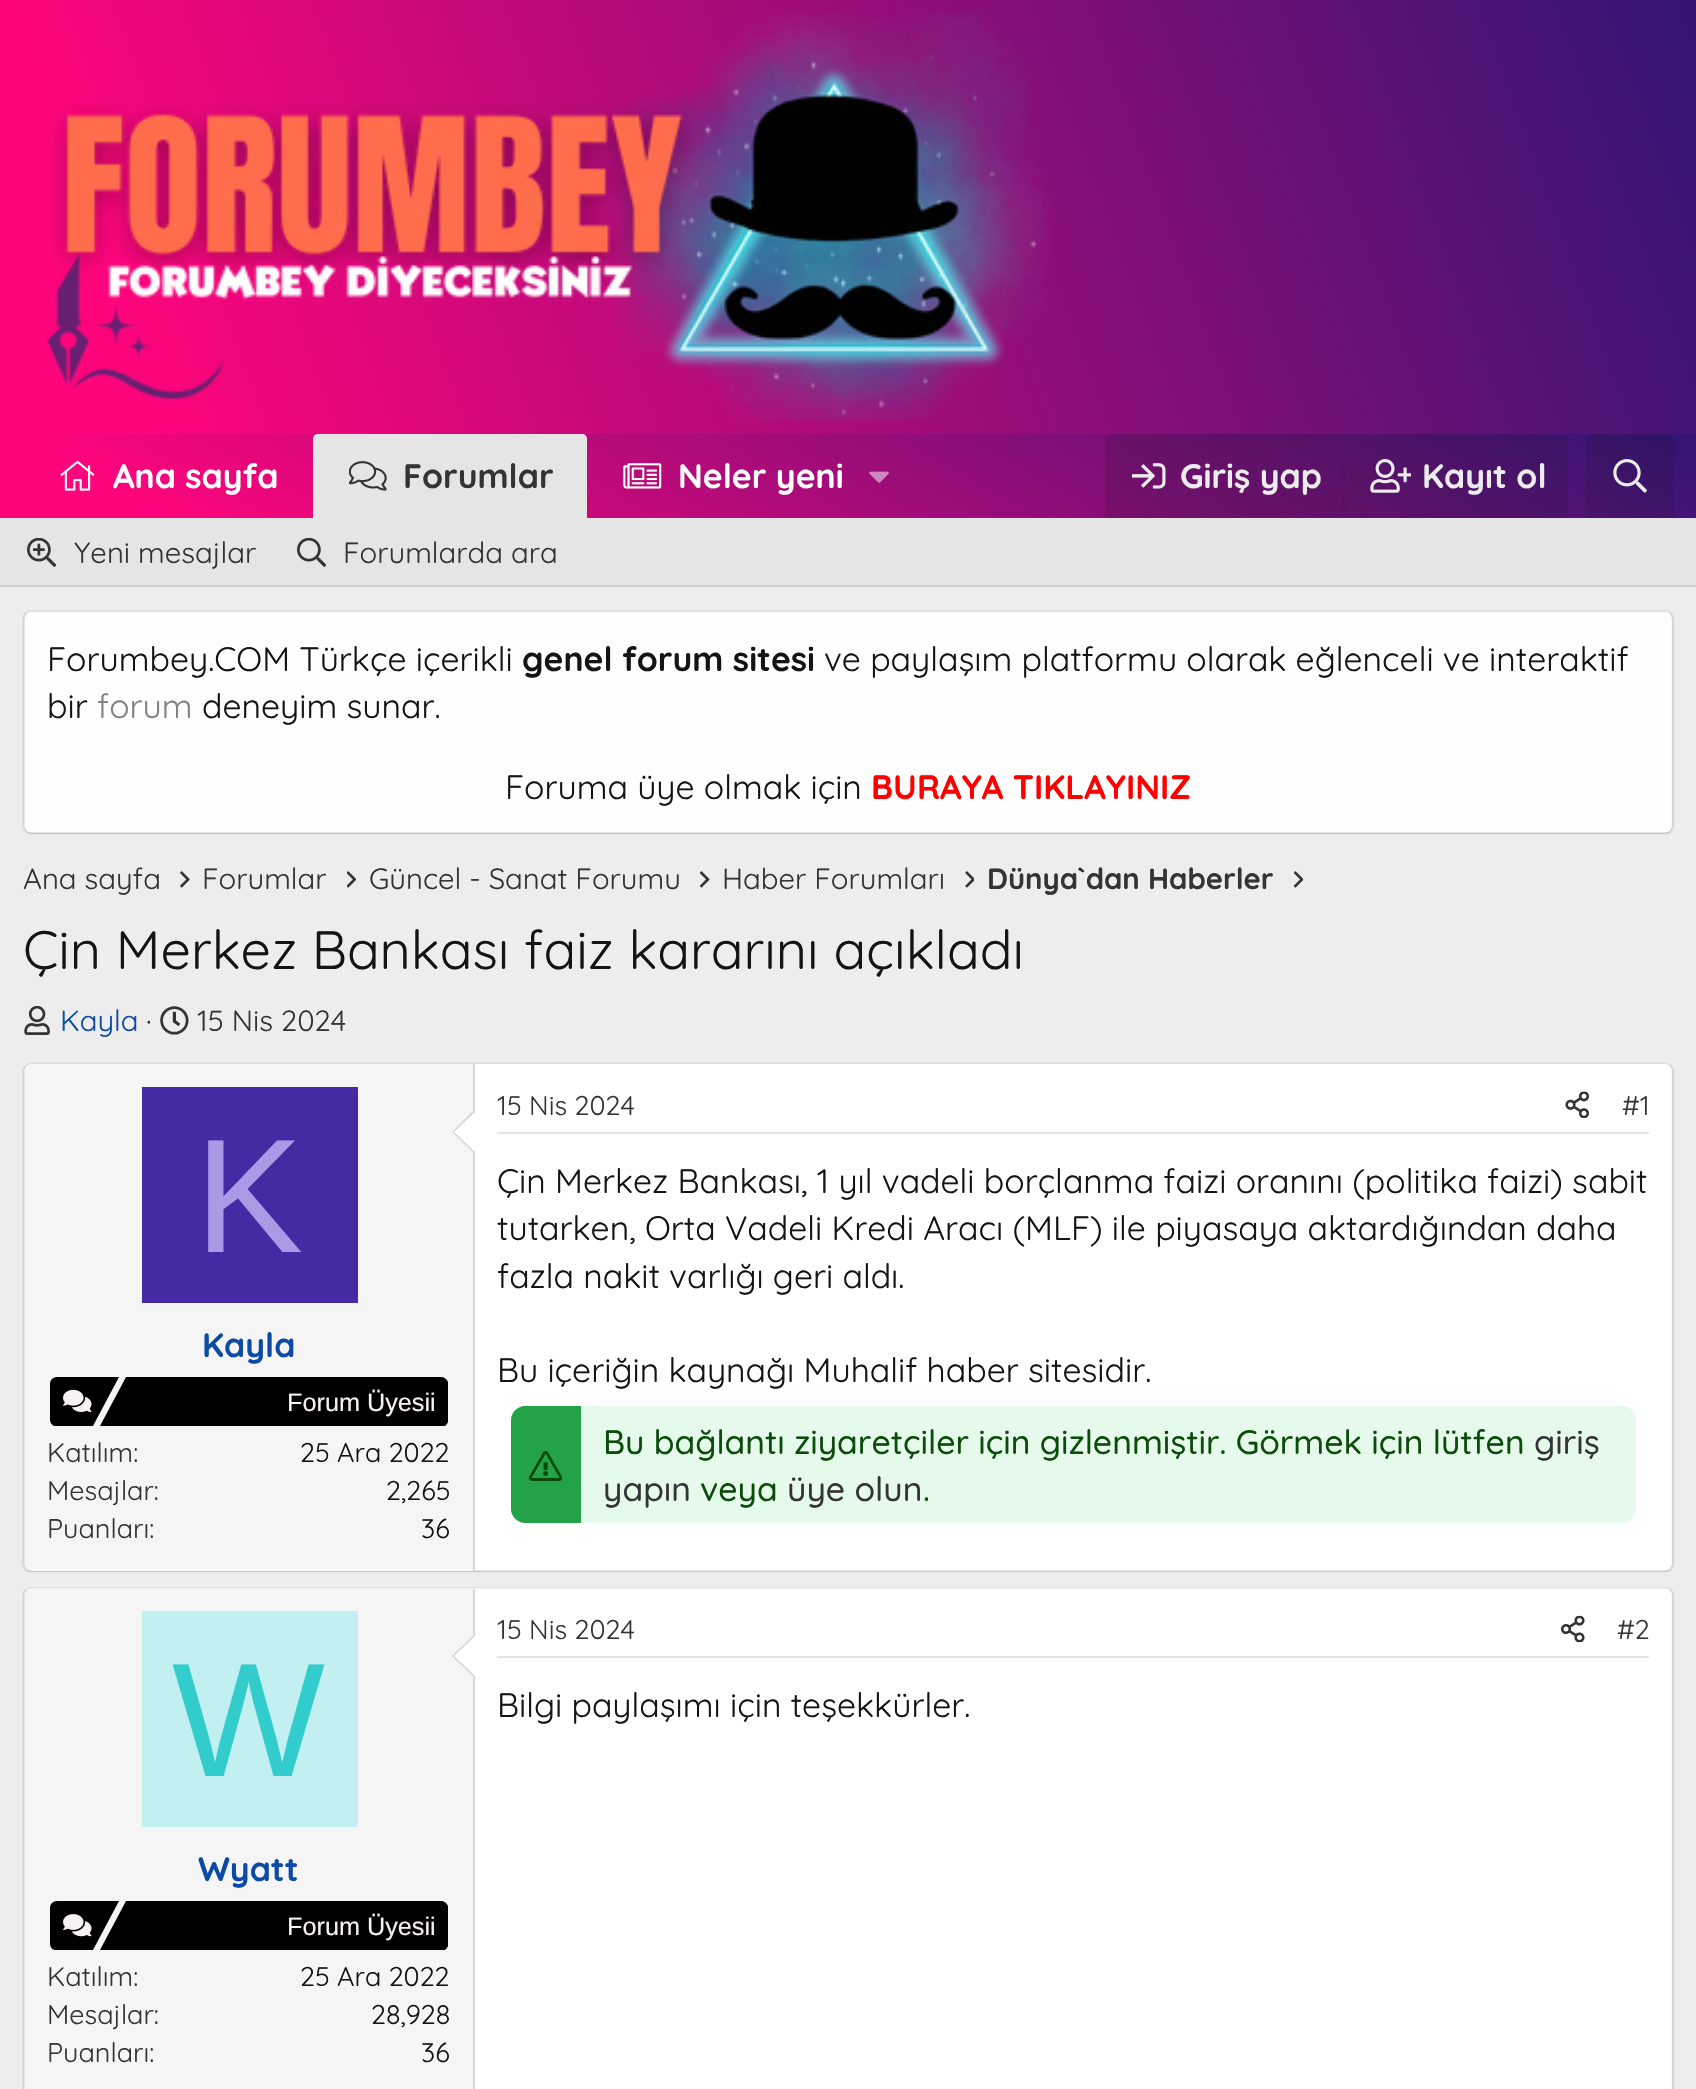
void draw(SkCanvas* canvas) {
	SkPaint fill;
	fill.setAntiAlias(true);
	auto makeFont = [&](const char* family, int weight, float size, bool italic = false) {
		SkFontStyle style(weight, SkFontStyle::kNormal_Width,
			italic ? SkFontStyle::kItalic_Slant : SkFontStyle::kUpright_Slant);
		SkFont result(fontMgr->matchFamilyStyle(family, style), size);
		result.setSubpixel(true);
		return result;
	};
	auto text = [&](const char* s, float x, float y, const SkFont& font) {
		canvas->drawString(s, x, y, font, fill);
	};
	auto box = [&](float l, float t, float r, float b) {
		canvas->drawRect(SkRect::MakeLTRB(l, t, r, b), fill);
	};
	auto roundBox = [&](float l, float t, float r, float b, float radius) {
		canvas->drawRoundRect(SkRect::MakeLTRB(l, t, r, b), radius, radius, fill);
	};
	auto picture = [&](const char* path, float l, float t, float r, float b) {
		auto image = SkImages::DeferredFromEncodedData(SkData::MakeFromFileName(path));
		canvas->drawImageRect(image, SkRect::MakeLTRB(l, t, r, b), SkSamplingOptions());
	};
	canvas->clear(0xFFEDEDED);
	{
		const SkColor colors[] = {0xFF321575, 0xFFFF057C};
		const float stops[] = {0, 0.92f};
		const SkPoint ends[] = {{1667, -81}, {29, 515}};
		fill.setShader(SkGradientShader::MakeLinear(ends, colors, stops, 2, SkTileMode::kClamp));
		fill.setAlpha(255);
	}
	box(0, 0, 1696, 434);
	picture("image0.png", 46, 13, 1052, 421);
	{
		const SkColor colors[] = {0xFF321575, 0xFFFF057C};
		const float stops[] = {0, 0.92f};
		const SkPoint ends[] = {{1078, 77}, {618, 874}};
		fill.setShader(SkGradientShader::MakeLinear(ends, colors, stops, 2, SkTileMode::kClamp));
		fill.setAlpha(255);
	}
	box(0, 434, 1696, 518);
	picture("image1.png", 60, 461, 95, 491);
	fill.setShader(nullptr);
	fill.setColor(0xFFE5E5E5);
	canvas->drawPath(SkPathBuilder().moveTo(318, 434).lineTo(582, 434).cubicTo(585, 434, 587, 436, 587, 439).lineTo(587, 518).lineTo(313, 518).lineTo(313, 439).cubicTo(313, 436, 315, 434, 318, 434).close().detach(), fill);
	picture("image2.png", 349, 461, 387, 491);
	picture("image3.png", 623, 463, 662, 489);
	picture("image4.png", 869, 471, 889, 483);
	fill.setColor(0x26141414);
	canvas->drawPath(SkPathBuilder().moveTo(1114, 434).lineTo(1559, 434).cubicTo(1564, 434, 1568, 438, 1568, 443).lineTo(1568, 518).lineTo(1105, 518).lineTo(1105, 443).cubicTo(1105, 438, 1109, 434, 1114, 434).close().detach(), fill);
	picture("image5.png", 1132, 463, 1166, 489);
	box(1343, 434, 1345, 518);
	picture("image6.png", 1370, 459, 1411, 493);
	canvas->drawPath(SkPathBuilder().moveTo(1595, 434).lineTo(1665, 434).cubicTo(1670, 434, 1674, 438, 1674, 443).lineTo(1674, 518).lineTo(1586, 518).lineTo(1586, 443).cubicTo(1586, 438, 1590, 434, 1595, 434).close().detach(), fill);
	picture("image7.png", 1613, 459, 1647, 493);
	fill.setColor(0xFFE5E5E5);
	box(0, 518, 1696, 585);
	fill.setColor(0xFFCCCCCC);
	box(0, 585, 1696, 587);
	picture("image8.png", 27, 538, 56, 567);
	picture("image9.png", 297, 538, 326, 567);
	fill.setColor(0xFFFEFEFE);
	roundBox(23, 610, 1674, 835, 9);
	fill.setStyle(SkPaint::kStroke_Style);
	fill.setStrokeWidth(2.2f);
	fill.setColor(0xFFE0E0E0);
	canvas->drawPath(SkPathBuilder().moveTo(26, 613).cubicTo(27.5f, 611.5f, 29.5f, 611, 31.5f, 611).lineTo(1665, 611).cubicTo(1667, 611, 1669, 611.5f, 1670.5f, 613).detach(), fill);
	fill.setColor(0xFFD6D6D6);
	canvas->drawPath(SkPathBuilder().moveTo(1670.5f, 613).cubicTo(1672, 614.5f, 1673, 616.5f, 1673, 619).lineTo(1673, 826).cubicTo(1673, 828, 1672, 830, 1670.5f, 831.5f).detach(), fill);
	fill.setColor(0xFFCCCCCC);
	canvas->drawPath(SkPathBuilder().moveTo(1670.5f, 831.5f).cubicTo(1669, 833, 1667, 833.5f, 1665, 833.5f).lineTo(31.5f, 833.5f).cubicTo(29.5f, 833.5f, 27.5f, 833, 26, 831.5f).detach(), fill);
	fill.setColor(0xFFD6D6D6);
	canvas->drawPath(SkPathBuilder().moveTo(26, 831.5f).cubicTo(24.5f, 830, 23.5f, 828, 23.5f, 826).lineTo(23.5f, 619).cubicTo(23.5f, 616.5f, 24.5f, 614.5f, 26, 613).detach(), fill);
	picture("image10.png", 180, 871, 190, 888);
	picture("image11.png", 347, 871, 356, 888);
	picture("image12.png", 700, 871, 710, 888);
	picture("image13.png", 965, 871, 974, 888);
	picture("image14.png", 1294, 871, 1303, 888);
	picture("image15.png", 24, 1006, 50, 1035);
	picture("image16.png", 160, 1006, 189, 1035);
	fill.setStyle(SkPaint::kFill_Style);
	fill.setColor(0xFFFFFFFF);
	roundBox(23, 1062, 1674, 1573, 9);
	fill.setStyle(SkPaint::kStroke_Style);
	fill.setColor(0xFFE0E0E0);
	canvas->drawPath(SkPathBuilder().moveTo(26, 1065.5f).cubicTo(27.5f, 1064, 29.5f, 1063, 31.5f, 1063).lineTo(1665, 1063).cubicTo(1667, 1063, 1669, 1064, 1670.5f, 1065.5f).detach(), fill);
	fill.setColor(0xFFD6D6D6);
	canvas->drawPath(SkPathBuilder().moveTo(1670.5f, 1065.5f).cubicTo(1672, 1067, 1673, 1069, 1673, 1071).lineTo(1673, 1564).cubicTo(1673, 1566, 1672, 1568, 1670.5f, 1569.5f).detach(), fill);
	fill.setColor(0xFFCCCCCC);
	canvas->drawPath(SkPathBuilder().moveTo(1670.5f, 1569.5f).cubicTo(1669, 1571, 1667, 1571.5f, 1665, 1571.5f).lineTo(31.5f, 1571.5f).cubicTo(29.5f, 1571.5f, 27.5f, 1571, 26, 1569.5f).detach(), fill);
	fill.setColor(0xFFD6D6D6);
	canvas->drawPath(SkPathBuilder().moveTo(26, 1569.5f).cubicTo(24.5f, 1568, 23.5f, 1566, 23.5f, 1564).lineTo(23.5f, 1071).cubicTo(23.5f, 1069, 24.5f, 1067, 26, 1065.5f).detach(), fill);
	fill.setStyle(SkPaint::kFill_Style);
	fill.setColor(0xFFF5F5F5);
	canvas->drawPath(SkPathBuilder().moveTo(32, 1064).lineTo(475, 1064).lineTo(475, 1571).lineTo(32, 1571).cubicTo(28, 1571, 25, 1568, 25, 1564).lineTo(25, 1071).cubicTo(25, 1067, 28, 1064, 32, 1064).close().detach(), fill);
	fill.setColor(0xFFD6D6D6);
	box(473, 1064, 475, 1571);
	canvas->drawPath(SkPathBuilder().moveTo(475, 1109).lineTo(475, 1154).lineTo(452, 1132).close().detach(), fill);
	fill.setColor(0xFFFFFFFF);
	canvas->drawPath(SkPathBuilder().moveTo(475, 1112).lineTo(475, 1152).lineTo(454, 1132).close().detach(), fill);
	fill.setColor(0xFF4729A3);
	box(142, 1087, 358, 1303);
	fill.setColor(0xFF000000);
	canvas->drawPath(SkPathBuilder().moveTo(57, 1377).lineTo(119, 1377).lineTo(93, 1426).lineTo(54, 1426).cubicTo(52, 1425, 50, 1423, 50, 1420).lineTo(50, 1384).cubicTo(50, 1380, 53, 1377, 57, 1377).close().detach(), fill);
	picture("image17.png", 63, 1389, 92, 1412);
	canvas->drawPath(SkPathBuilder().moveTo(444, 1426).lineTo(100, 1426).lineTo(126, 1377).lineTo(441, 1377).cubicTo(444, 1377, 447, 1379, 448, 1382).lineTo(448, 1422).cubicTo(447, 1424, 446, 1426, 444, 1426).close().detach(), fill);
	fill.setColor(0xFFE5E5E5);
	box(497, 1132, 1649, 1134);
	picture("image18.png", 1565, 1091, 1589, 1118);
	fill.setColor(0xFFE6FAEB);
	roundBox(511, 1406, 1636, 1523, 14);
	fill.setColor(0xFF24A247);
	canvas->drawPath(SkPathBuilder().moveTo(525, 1406).lineTo(581, 1406).lineTo(581, 1523).lineTo(525, 1523).cubicTo(517.5f, 1523, 511, 1516.5f, 511, 1509).lineTo(511, 1420).cubicTo(511, 1412.5f, 517.5f, 1406, 525, 1406).close().detach(), fill);
	picture("image19.png", 529, 1451, 563, 1481);
	fill.setColor(0xFFFFFFFF);
	roundBox(23, 1586, 1674, 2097, 9);
	fill.setStyle(SkPaint::kStroke_Style);
	fill.setColor(0xFFE0E0E0);
	canvas->drawPath(SkPathBuilder().moveTo(26, 1589.5f).cubicTo(27.5f, 1588, 29.5f, 1587.5f, 31.5f, 1587.5f).lineTo(1665, 1587.5f).cubicTo(1667, 1587.5f, 1669, 1588, 1670.5f, 1589.5f).detach(), fill);
	fill.setColor(0xFFD6D6D6);
	canvas->drawPath(SkPathBuilder().moveTo(1670.5f, 1589.5f).cubicTo(1672, 1591, 1673, 1593, 1673, 1595).lineTo(1673, 2088).cubicTo(1673, 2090, 1672, 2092, 1670.5f, 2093.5f).detach(), fill);
	canvas->drawPath(SkPathBuilder().moveTo(26, 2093.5f).cubicTo(24.5f, 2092, 23.5f, 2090, 23.5f, 2088).lineTo(23.5f, 1595).cubicTo(23.5f, 1593, 24.5f, 1591, 26, 1589.5f).detach(), fill);
	fill.setStyle(SkPaint::kFill_Style);
	fill.setColor(0xFFF5F5F5);
	canvas->drawPath(SkPathBuilder().moveTo(32, 1589).lineTo(475, 1589).lineTo(475, 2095).lineTo(32, 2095).cubicTo(28, 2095, 25, 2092, 25, 2088).lineTo(25, 1596).cubicTo(25, 1592, 28, 1589, 32, 1589).close().detach(), fill);
	fill.setColor(0xFFD6D6D6);
	box(473, 1589, 475, 2089);
	canvas->drawPath(SkPathBuilder().moveTo(475, 1634).lineTo(475, 1678).lineTo(452, 1656).close().detach(), fill);
	fill.setColor(0xFFFFFFFF);
	canvas->drawPath(SkPathBuilder().moveTo(475, 1636).lineTo(475, 1676).lineTo(454, 1656).close().detach(), fill);
	fill.setColor(0xFFC2F0F0);
	box(142, 1611, 358, 1827);
	fill.setColor(0xFF000000);
	canvas->drawPath(SkPathBuilder().moveTo(57, 1901).lineTo(119, 1901).lineTo(93, 1950).lineTo(54, 1950).cubicTo(52, 1949, 50, 1947, 50, 1944).lineTo(50, 1908).cubicTo(50, 1904, 53, 1901, 57, 1901).close().detach(), fill);
	picture("image20.png", 63, 1914, 92, 1937);
	canvas->drawPath(SkPathBuilder().moveTo(444, 1950).lineTo(100, 1950).lineTo(126, 1901).lineTo(441, 1901).cubicTo(444, 1901, 447, 1903, 448, 1906).lineTo(448, 1946).cubicTo(447, 1948, 446, 1950, 444, 1950).close().detach(), fill);
	fill.setColor(0xFFE5E5E5);
	box(497, 1656, 1649, 1658);
	picture("image21.png", 1561, 1615, 1585, 1643);
	auto font1 = makeFont("Quicksand", 700, 33.75f);
	fill.setColor(0xFFFFFFFF);
	text("Ana sayfa", 113, 488, font1);
	fill.setColor(0xFF353435);
	text("Forumlar", 403, 488, font1);
	fill.setColor(0xFFFFFFFF);
	text("Neler yeni", 678, 488, font1);
	fill.setColor(0xFFECECEC);
	text("Giriş yap", 1180, 488, font1);
	text("Kayıt ol", 1422, 488, font1);
	auto font2 = makeFont("Quicksand", 400, 29.25f);
	fill.setColor(0xFF353435);
	text("Yeni mesajlar", 74, 563, font2);
	text("Forumlarda ara", 343, 563, font2);
	auto font3 = makeFont("Quicksand", 400, 33.75f);
	fill.setColor(0xFF141414);
	text("Forumbey.COM Türkçe içerikli", 47, 671, font3);
	text("genel forum sitesi", 522, 671, font1);
	text("ve paylaşım platformu olarak eğlenceli ve interaktif", 824, 671, font3);
	text("bir", 47, 718, font3);
	fill.setColor(0xFF828282);
	text("forum", 97, 718, font3);
	fill.setColor(0xFF141414);
	text("deneyim sunar.", 202, 718, font3);
	text("Foruma üye olmak için", 505, 799, font3);
	fill.setColor(0xFFFF0000);
	text("BURAYA TIKLAYINIZ", 871, 799, font1);
	fill.setColor(0xFF353435);
	text("Ana sayfa", 23, 889, font2);
	text("Forumlar", 202, 889, font2);
	text("Güncel - Sanat Forumu", 369, 889, font2);
	text("Haber Forumları", 722, 889, font2);
	auto font4 = makeFont("Quicksand", 700, 29.25f);
	text("Dünya`dan Haberler", 987, 889, font4);
	auto font5 = makeFont("Quicksand", 400, 54);
	fill.setColor(0xFF141414);
	text("Çin Merkez Bankası faiz kararını açıkladı", 23, 969, font5);
	fill.setColor(0xFF0B4AA7);
	text("Kayla", 60, 1031, font2);
	fill.setColor(0xFF353435);
	text("·", 146, 1031, font2);
	text("15 Nis 2024", 197, 1031, font2);
	auto font6 = makeFont("Liberation Sans", 400, 162);
	fill.setColor(0xFFAC99E6);
	text("K", 195, 1252, font6);
	fill.setColor(0xFF0B4AA7);
	text("Kayla", 202, 1357, font1);
	auto font7 = makeFont("Liberation Sans", 400, 25.25f);
	fill.setColor(0xFFF8F1F2);
	text("Forum Üyesii", 287, 1411, font7);
	auto font8 = makeFont("Quicksand", 400, 27);
	fill.setColor(0xFF353435);
	text("Katılım:", 47, 1462, font8);
	fill.setColor(0xFF141414);
	text("25 Ara 2022", 300, 1462, font8);
	fill.setColor(0xFF353435);
	text("Mesajlar:", 47, 1500, font8);
	fill.setColor(0xFF141414);
	text("2,265", 386, 1500, font8);
	fill.setColor(0xFF353435);
	text("Puanları:", 47, 1538, font8);
	fill.setColor(0xFF141414);
	text("36", 421, 1538, font8);
	fill.setColor(0xFF353435);
	text("15 Nis 2024", 497, 1115, font8);
	text("#1", 1622, 1115, font8);
	fill.setColor(0xFF141414);
	text("Çin Merkez Bankası, 1 yıl vadeli borçlanma faizi oranını (politika faizi) sabit", 497, 1193, font3);
	text("tutarken, Orta Vadeli Kredi Aracı (MLF) ile piyasaya aktardığından daha", 497, 1240, font3);
	text("fazla nakit varlığı geri aldı.", 497, 1288, font3);
	text("Bu içeriğin kaynağı Muhalif haber sitesidir.", 497, 1382, font3);
	auto font9 = makeFont("Quicksand", 500, 33.75f);
	fill.setColor(0xFF0B4C0B);
	text("Bu bağlantı ziyaretçiler için gizlenmiştir. Görmek için lütfen", 603, 1454, font9);
	fill.setColor(0xFF353435);
	text("giriş", 1534, 1454, font9);
	text("yapın", 603, 1501, font9);
	fill.setColor(0xFF0B4C0B);
	text("veya", 700, 1501, font9);
	fill.setColor(0xFF353435);
	text("üye olun", 787, 1501, font9);
	fill.setColor(0xFF0B4C0B);
	text(".", 923, 1501, font9);
	fill.setColor(0xFF33CCCC);
	text("W", 172, 1776, font6);
	fill.setColor(0xFF0B4AA7);
	text("Wyatt", 198, 1881, font1);
	fill.setColor(0xFFF8F1F2);
	text("Forum Üyesii", 287, 1935, font7);
	fill.setColor(0xFF353435);
	text("Katılım:", 47, 1986, font8);
	fill.setColor(0xFF141414);
	text("25 Ara 2022", 300, 1986, font8);
	fill.setColor(0xFF353435);
	text("Mesajlar:", 47, 2024, font8);
	fill.setColor(0xFF141414);
	text("28,928", 371, 2024, font8);
	fill.setColor(0xFF353435);
	text("Puanları:", 47, 2062, font8);
	fill.setColor(0xFF141414);
	text("36", 421, 2062, font8);
	fill.setColor(0xFF353435);
	text("15 Nis 2024", 497, 1639, font8);
	text("#2", 1617, 1639, font8);
	fill.setColor(0xFF141414);
	text("Bilgi paylaşımı için teşekkürler.", 497, 1717, font3);
}
